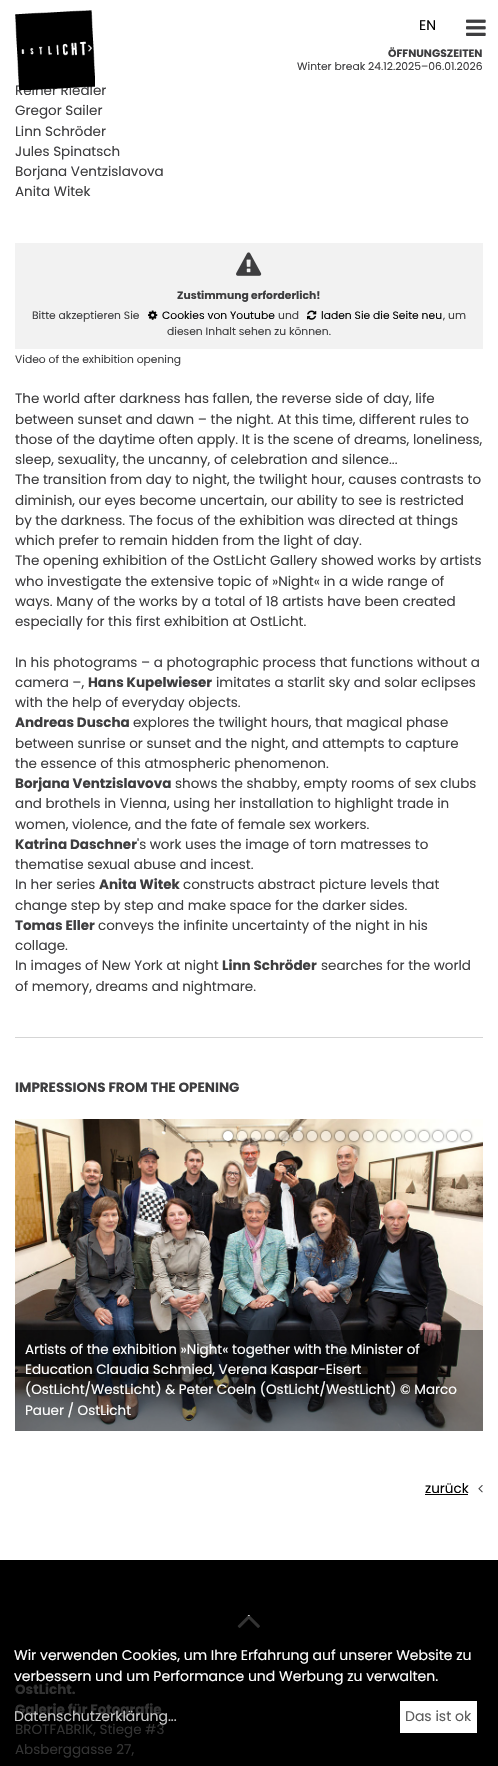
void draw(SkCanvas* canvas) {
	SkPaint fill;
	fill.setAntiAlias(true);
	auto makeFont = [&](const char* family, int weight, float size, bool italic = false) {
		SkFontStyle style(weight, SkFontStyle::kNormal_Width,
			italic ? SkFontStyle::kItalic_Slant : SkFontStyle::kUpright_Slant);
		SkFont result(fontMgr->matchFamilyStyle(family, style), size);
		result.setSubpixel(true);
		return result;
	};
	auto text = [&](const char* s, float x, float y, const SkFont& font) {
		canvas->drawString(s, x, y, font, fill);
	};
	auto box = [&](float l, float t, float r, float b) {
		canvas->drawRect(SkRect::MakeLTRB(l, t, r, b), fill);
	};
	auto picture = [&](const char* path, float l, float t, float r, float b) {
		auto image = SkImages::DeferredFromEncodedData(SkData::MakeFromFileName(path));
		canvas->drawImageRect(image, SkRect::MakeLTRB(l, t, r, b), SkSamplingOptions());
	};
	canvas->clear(0xFFFFFFFF);
	picture("image1.png", 466, 19, 486, 36);
	fill.setColor(0xFFF2F2F2);
	box(15, 243, 483, 349);
	picture("image2.png", 236, 252, 262, 276);
	picture("image3.png", 148, 310, 158, 320);
	picture("image4.png", 307, 310, 317, 320);
	fill.setColor(0xFFD5D5D5);
	box(15, 1037, 483, 1038);
	picture("image5.png", 15, 1119, 483, 1431);
	fill.setColor(0xCC000000);
	fill.setMaskFilter(SkMaskFilter::MakeBlur(kNormal_SkBlurStyle, 1.5f));
	canvas->drawRoundRect(SkRect::MakeLTRB(223, 1131, 233, 1141), 5, 5, fill);
	fill.setMaskFilter(nullptr);
	fill.setColor(0xFFFFFFFF);
	canvas->drawCircle(228, 1136, 5, fill);
	canvas->save();
	canvas->clipPath(SkPathBuilder(SkPathFillType::kEvenOdd).moveTo(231, 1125).lineTo(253, 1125).lineTo(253, 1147).lineTo(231, 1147).close().moveTo(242, 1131).cubicTo(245, 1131, 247, 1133, 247, 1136).cubicTo(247, 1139, 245, 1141, 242, 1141).cubicTo(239, 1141, 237, 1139, 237, 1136).cubicTo(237, 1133, 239, 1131, 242, 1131).close().detach(), true);
	fill.setColor(0xCC000000);
	fill.setMaskFilter(SkMaskFilter::MakeBlur(kNormal_SkBlurStyle, 1.5f));
	canvas->drawRoundRect(SkRect::MakeLTRB(237, 1131, 247, 1141), 5, 5, fill);
	fill.setMaskFilter(nullptr);
	canvas->restore();
	fill.setColor(0x80FFFFFF);
	canvas->drawCircle(242, 1136, 5, fill);
	canvas->save();
	canvas->clipPath(SkPathBuilder(SkPathFillType::kEvenOdd).moveTo(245, 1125).lineTo(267, 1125).lineTo(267, 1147).lineTo(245, 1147).close().moveTo(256, 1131).cubicTo(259, 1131, 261, 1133, 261, 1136).cubicTo(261, 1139, 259, 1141, 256, 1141).cubicTo(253, 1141, 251, 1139, 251, 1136).cubicTo(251, 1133, 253, 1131, 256, 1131).close().detach(), true);
	fill.setColor(0xCC000000);
	fill.setMaskFilter(SkMaskFilter::MakeBlur(kNormal_SkBlurStyle, 1.5f));
	canvas->drawRoundRect(SkRect::MakeLTRB(251, 1131, 261, 1141), 5, 5, fill);
	fill.setMaskFilter(nullptr);
	canvas->restore();
	fill.setColor(0x80FFFFFF);
	canvas->drawCircle(256, 1136, 5, fill);
	canvas->save();
	canvas->clipPath(SkPathBuilder(SkPathFillType::kEvenOdd).moveTo(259, 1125).lineTo(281, 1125).lineTo(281, 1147).lineTo(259, 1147).close().moveTo(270, 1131).cubicTo(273, 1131, 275, 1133, 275, 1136).cubicTo(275, 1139, 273, 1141, 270, 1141).cubicTo(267, 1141, 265, 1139, 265, 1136).cubicTo(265, 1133, 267, 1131, 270, 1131).close().detach(), true);
	fill.setColor(0xCC000000);
	fill.setMaskFilter(SkMaskFilter::MakeBlur(kNormal_SkBlurStyle, 1.5f));
	canvas->drawRoundRect(SkRect::MakeLTRB(265, 1131, 275, 1141), 5, 5, fill);
	fill.setMaskFilter(nullptr);
	canvas->restore();
	fill.setColor(0x80FFFFFF);
	canvas->drawCircle(270, 1136, 5, fill);
	canvas->save();
	canvas->clipPath(SkPathBuilder(SkPathFillType::kEvenOdd).moveTo(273, 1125).lineTo(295, 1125).lineTo(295, 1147).lineTo(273, 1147).close().moveTo(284, 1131).cubicTo(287, 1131, 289, 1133, 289, 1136).cubicTo(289, 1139, 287, 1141, 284, 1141).cubicTo(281, 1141, 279, 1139, 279, 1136).cubicTo(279, 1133, 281, 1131, 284, 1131).close().detach(), true);
	fill.setColor(0xCC000000);
	fill.setMaskFilter(SkMaskFilter::MakeBlur(kNormal_SkBlurStyle, 1.5f));
	canvas->drawRoundRect(SkRect::MakeLTRB(279, 1131, 289, 1141), 5, 5, fill);
	fill.setMaskFilter(nullptr);
	canvas->restore();
	fill.setColor(0x80FFFFFF);
	canvas->drawCircle(284, 1136, 5, fill);
	canvas->save();
	canvas->clipPath(SkPathBuilder(SkPathFillType::kEvenOdd).moveTo(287, 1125).lineTo(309, 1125).lineTo(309, 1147).lineTo(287, 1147).close().moveTo(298, 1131).cubicTo(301, 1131, 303, 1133, 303, 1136).cubicTo(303, 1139, 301, 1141, 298, 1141).cubicTo(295, 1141, 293, 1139, 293, 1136).cubicTo(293, 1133, 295, 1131, 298, 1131).close().detach(), true);
	fill.setColor(0xCC000000);
	fill.setMaskFilter(SkMaskFilter::MakeBlur(kNormal_SkBlurStyle, 1.5f));
	canvas->drawRoundRect(SkRect::MakeLTRB(293, 1131, 303, 1141), 5, 5, fill);
	fill.setMaskFilter(nullptr);
	canvas->restore();
	fill.setColor(0x80FFFFFF);
	canvas->drawCircle(298, 1136, 5, fill);
	canvas->save();
	canvas->clipPath(SkPathBuilder(SkPathFillType::kEvenOdd).moveTo(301, 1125).lineTo(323, 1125).lineTo(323, 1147).lineTo(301, 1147).close().moveTo(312, 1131).cubicTo(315, 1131, 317, 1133, 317, 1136).cubicTo(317, 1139, 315, 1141, 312, 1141).cubicTo(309, 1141, 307, 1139, 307, 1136).cubicTo(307, 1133, 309, 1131, 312, 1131).close().detach(), true);
	fill.setColor(0xCC000000);
	fill.setMaskFilter(SkMaskFilter::MakeBlur(kNormal_SkBlurStyle, 1.5f));
	canvas->drawRoundRect(SkRect::MakeLTRB(307, 1131, 317, 1141), 5, 5, fill);
	fill.setMaskFilter(nullptr);
	canvas->restore();
	fill.setColor(0x80FFFFFF);
	canvas->drawCircle(312, 1136, 5, fill);
	canvas->save();
	canvas->clipPath(SkPathBuilder(SkPathFillType::kEvenOdd).moveTo(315, 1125).lineTo(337, 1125).lineTo(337, 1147).lineTo(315, 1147).close().moveTo(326, 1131).cubicTo(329, 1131, 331, 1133, 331, 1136).cubicTo(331, 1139, 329, 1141, 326, 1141).cubicTo(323, 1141, 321, 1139, 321, 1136).cubicTo(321, 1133, 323, 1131, 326, 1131).close().detach(), true);
	fill.setColor(0xCC000000);
	fill.setMaskFilter(SkMaskFilter::MakeBlur(kNormal_SkBlurStyle, 1.5f));
	canvas->drawRoundRect(SkRect::MakeLTRB(321, 1131, 331, 1141), 5, 5, fill);
	fill.setMaskFilter(nullptr);
	canvas->restore();
	fill.setColor(0x80FFFFFF);
	canvas->drawCircle(326, 1136, 5, fill);
	canvas->save();
	canvas->clipPath(SkPathBuilder(SkPathFillType::kEvenOdd).moveTo(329, 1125).lineTo(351, 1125).lineTo(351, 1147).lineTo(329, 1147).close().moveTo(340, 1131).cubicTo(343, 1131, 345, 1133, 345, 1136).cubicTo(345, 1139, 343, 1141, 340, 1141).cubicTo(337, 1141, 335, 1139, 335, 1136).cubicTo(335, 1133, 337, 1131, 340, 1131).close().detach(), true);
	fill.setColor(0xCC000000);
	fill.setMaskFilter(SkMaskFilter::MakeBlur(kNormal_SkBlurStyle, 1.5f));
	canvas->drawRoundRect(SkRect::MakeLTRB(335, 1131, 345, 1141), 5, 5, fill);
	fill.setMaskFilter(nullptr);
	canvas->restore();
	fill.setColor(0x80FFFFFF);
	canvas->drawCircle(340, 1136, 5, fill);
	canvas->save();
	canvas->clipPath(SkPathBuilder(SkPathFillType::kEvenOdd).moveTo(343, 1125).lineTo(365, 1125).lineTo(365, 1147).lineTo(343, 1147).close().moveTo(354, 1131).cubicTo(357, 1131, 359, 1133, 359, 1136).cubicTo(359, 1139, 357, 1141, 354, 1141).cubicTo(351, 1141, 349, 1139, 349, 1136).cubicTo(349, 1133, 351, 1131, 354, 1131).close().detach(), true);
	fill.setColor(0xCC000000);
	fill.setMaskFilter(SkMaskFilter::MakeBlur(kNormal_SkBlurStyle, 1.5f));
	canvas->drawRoundRect(SkRect::MakeLTRB(349, 1131, 359, 1141), 5, 5, fill);
	fill.setMaskFilter(nullptr);
	canvas->restore();
	fill.setColor(0x80FFFFFF);
	canvas->drawCircle(354, 1136, 5, fill);
	canvas->save();
	canvas->clipPath(SkPathBuilder(SkPathFillType::kEvenOdd).moveTo(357, 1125).lineTo(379, 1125).lineTo(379, 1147).lineTo(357, 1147).close().moveTo(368, 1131).cubicTo(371, 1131, 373, 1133, 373, 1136).cubicTo(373, 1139, 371, 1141, 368, 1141).cubicTo(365, 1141, 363, 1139, 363, 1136).cubicTo(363, 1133, 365, 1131, 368, 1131).close().detach(), true);
	fill.setColor(0xCC000000);
	fill.setMaskFilter(SkMaskFilter::MakeBlur(kNormal_SkBlurStyle, 1.5f));
	canvas->drawRoundRect(SkRect::MakeLTRB(363, 1131, 373, 1141), 5, 5, fill);
	fill.setMaskFilter(nullptr);
	canvas->restore();
	fill.setColor(0x80FFFFFF);
	canvas->drawCircle(368, 1136, 5, fill);
	canvas->save();
	canvas->clipPath(SkPathBuilder(SkPathFillType::kEvenOdd).moveTo(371, 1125).lineTo(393, 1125).lineTo(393, 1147).lineTo(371, 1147).close().moveTo(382, 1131).cubicTo(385, 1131, 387, 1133, 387, 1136).cubicTo(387, 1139, 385, 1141, 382, 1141).cubicTo(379, 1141, 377, 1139, 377, 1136).cubicTo(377, 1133, 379, 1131, 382, 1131).close().detach(), true);
	fill.setColor(0xCC000000);
	fill.setMaskFilter(SkMaskFilter::MakeBlur(kNormal_SkBlurStyle, 1.5f));
	canvas->drawRoundRect(SkRect::MakeLTRB(377, 1131, 387, 1141), 5, 5, fill);
	fill.setMaskFilter(nullptr);
	canvas->restore();
	fill.setColor(0x80FFFFFF);
	canvas->drawCircle(382, 1136, 5, fill);
	canvas->save();
	canvas->clipPath(SkPathBuilder(SkPathFillType::kEvenOdd).moveTo(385, 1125).lineTo(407, 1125).lineTo(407, 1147).lineTo(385, 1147).close().moveTo(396, 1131).cubicTo(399, 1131, 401, 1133, 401, 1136).cubicTo(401, 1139, 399, 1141, 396, 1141).cubicTo(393, 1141, 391, 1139, 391, 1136).cubicTo(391, 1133, 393, 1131, 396, 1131).close().detach(), true);
	fill.setColor(0xCC000000);
	fill.setMaskFilter(SkMaskFilter::MakeBlur(kNormal_SkBlurStyle, 1.5f));
	canvas->drawRoundRect(SkRect::MakeLTRB(391, 1131, 401, 1141), 5, 5, fill);
	fill.setMaskFilter(nullptr);
	canvas->restore();
	fill.setColor(0x80FFFFFF);
	canvas->drawCircle(396, 1136, 5, fill);
	canvas->save();
	canvas->clipPath(SkPathBuilder(SkPathFillType::kEvenOdd).moveTo(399, 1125).lineTo(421, 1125).lineTo(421, 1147).lineTo(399, 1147).close().moveTo(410, 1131).cubicTo(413, 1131, 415, 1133, 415, 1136).cubicTo(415, 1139, 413, 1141, 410, 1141).cubicTo(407, 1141, 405, 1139, 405, 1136).cubicTo(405, 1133, 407, 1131, 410, 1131).close().detach(), true);
	fill.setColor(0xCC000000);
	fill.setMaskFilter(SkMaskFilter::MakeBlur(kNormal_SkBlurStyle, 1.5f));
	canvas->drawRoundRect(SkRect::MakeLTRB(405, 1131, 415, 1141), 5, 5, fill);
	fill.setMaskFilter(nullptr);
	canvas->restore();
	fill.setColor(0x80FFFFFF);
	canvas->drawCircle(410, 1136, 5, fill);
	canvas->save();
	canvas->clipPath(SkPathBuilder(SkPathFillType::kEvenOdd).moveTo(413, 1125).lineTo(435, 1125).lineTo(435, 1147).lineTo(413, 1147).close().moveTo(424, 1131).cubicTo(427, 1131, 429, 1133, 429, 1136).cubicTo(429, 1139, 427, 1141, 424, 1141).cubicTo(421, 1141, 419, 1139, 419, 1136).cubicTo(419, 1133, 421, 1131, 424, 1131).close().detach(), true);
	fill.setColor(0xCC000000);
	fill.setMaskFilter(SkMaskFilter::MakeBlur(kNormal_SkBlurStyle, 1.5f));
	canvas->drawRoundRect(SkRect::MakeLTRB(419, 1131, 429, 1141), 5, 5, fill);
	fill.setMaskFilter(nullptr);
	canvas->restore();
	fill.setColor(0x80FFFFFF);
	canvas->drawCircle(424, 1136, 5, fill);
	canvas->save();
	canvas->clipPath(SkPathBuilder(SkPathFillType::kEvenOdd).moveTo(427, 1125).lineTo(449, 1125).lineTo(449, 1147).lineTo(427, 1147).close().moveTo(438, 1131).cubicTo(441, 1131, 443, 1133, 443, 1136).cubicTo(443, 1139, 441, 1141, 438, 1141).cubicTo(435, 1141, 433, 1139, 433, 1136).cubicTo(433, 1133, 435, 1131, 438, 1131).close().detach(), true);
	fill.setColor(0xCC000000);
	fill.setMaskFilter(SkMaskFilter::MakeBlur(kNormal_SkBlurStyle, 1.5f));
	canvas->drawRoundRect(SkRect::MakeLTRB(433, 1131, 443, 1141), 5, 5, fill);
	fill.setMaskFilter(nullptr);
	canvas->restore();
	fill.setColor(0x80FFFFFF);
	canvas->drawCircle(438, 1136, 5, fill);
	canvas->save();
	canvas->clipPath(SkPathBuilder(SkPathFillType::kEvenOdd).moveTo(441, 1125).lineTo(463, 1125).lineTo(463, 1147).lineTo(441, 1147).close().moveTo(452, 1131).cubicTo(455, 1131, 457, 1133, 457, 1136).cubicTo(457, 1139, 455, 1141, 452, 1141).cubicTo(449, 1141, 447, 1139, 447, 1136).cubicTo(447, 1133, 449, 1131, 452, 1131).close().detach(), true);
	fill.setColor(0xCC000000);
	fill.setMaskFilter(SkMaskFilter::MakeBlur(kNormal_SkBlurStyle, 1.5f));
	canvas->drawRoundRect(SkRect::MakeLTRB(447, 1131, 457, 1141), 5, 5, fill);
	fill.setMaskFilter(nullptr);
	canvas->restore();
	fill.setColor(0x80FFFFFF);
	canvas->drawCircle(452, 1136, 5, fill);
	canvas->save();
	canvas->clipPath(SkPathBuilder(SkPathFillType::kEvenOdd).moveTo(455, 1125).lineTo(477, 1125).lineTo(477, 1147).lineTo(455, 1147).close().moveTo(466, 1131).cubicTo(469, 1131, 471, 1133, 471, 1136).cubicTo(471, 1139, 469, 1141, 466, 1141).cubicTo(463, 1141, 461, 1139, 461, 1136).cubicTo(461, 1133, 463, 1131, 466, 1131).close().detach(), true);
	fill.setColor(0xCC000000);
	fill.setMaskFilter(SkMaskFilter::MakeBlur(kNormal_SkBlurStyle, 1.5f));
	canvas->drawRoundRect(SkRect::MakeLTRB(461, 1131, 471, 1141), 5, 5, fill);
	fill.setMaskFilter(nullptr);
	canvas->restore();
	fill.setColor(0x80FFFFFF);
	canvas->drawCircle(466, 1136, 5, fill);
	fill.setColor(0x66000000);
	box(15, 1330, 483, 1431);
	fill.setColor(0xFF000000);
	box(425, 1494, 468, 1495);
	picture("image6.png", 478, 1485, 483, 1493);
	box(0, 1560, 498, 1766);
	picture("image7.png", 237, 1615, 260, 1628);
	fill.setColor(0xFFFFFFFF);
	box(400, 1701, 477, 1733);
	auto font1 = makeFont("Poppins", 400, 14);
	fill.setColor(0xFF000000);
	text("EN", 419, 30, font1);
	auto font2 = makeFont("Poppins", 700, 10.75f);
	fill.setColor(0xFF3E3E40);
	text("ÖFFNUNGSZEITEN", 388, 57, font2);
	auto font3 = makeFont("Poppins", 400, 10.75f);
	text("Winter break 24.12.2025–06.01.2026", 297, 70, font3);
	auto font4 = makeFont("Poppins", 400, 13.5f);
	text("Reiner Riedler", 15, 95, font4);
	picture("image0.png", 15, 10, 95, 90);
	text("Gregor Sailer", 15, 115, font4);
	text("Linn Schröder", 15, 136, font4);
	text("Jules Spinatsch", 15, 156, font4);
	text("Borjana Ventzislavova", 15, 176, font4);
	text("Anita Witek", 15, 196, font4);
	text("Zustimmung erforderlich!", 177, 299, font2);
	text("Bitte akzeptieren Sie", 32, 319, font3);
	fill.setColor(0xFF000000);
	text("Cookies von Youtube", 162, 319, font3);
	fill.setColor(0xFF3E3E40);
	text("und", 278, 319, font3);
	fill.setColor(0xFF000000);
	text("laden Sie die Seite neu", 321, 319, font3);
	fill.setColor(0xFF3E3E40);
	text(", um", 443, 319, font3);
	text("diesen Inhalt sehen zu können.", 167, 335, font3);
	text("Video of the exhibition opening", 15, 363, font3);
	text("The world after darkness has fallen, the reverse side of day, life", 15, 403, font4);
	text("between sunset and dawn – the night. At this time, different rules to", 15, 424, font4);
	text("those of the daytime often apply. It is the scene of dreams, loneliness,", 15, 444, font4);
	text("sleep, sexuality, the uncanny, of celebration and silence...", 15, 464, font4);
	text("The transition from day to night, the twilight hour, causes contrasts to", 15, 484, font4);
	text("diminish, our eyes become uncertain, our ability to see is restricted", 15, 505, font4);
	text("by the darkness. The focus of the exhibition was directed at things", 15, 525, font4);
	text("which prefer to remain hidden from the light of day.", 15, 545, font4);
	text("The opening exhibition of the OstLicht Gallery showed works by artists", 15, 565, font4);
	text("who investigate the extensive topic of »Night« in a wide range of", 15, 586, font4);
	text("ways. Many of the works by a total of 18 artists have been created", 15, 606, font4);
	text("especially for this first exhibition at OstLicht.", 15, 626, font4);
	text("In his photograms – a photographic process that functions without a", 15, 667, font4);
	text("camera –,", 15, 687, font4);
	auto font5 = makeFont("Poppins", 700, 13.5f);
	text("Hans Kupelwieser", 88, 687, font5);
	text("imitates a starlit sky and solar eclipses", 216, 687, font4);
	text("with the help of everyday objects.", 15, 707, font4);
	text("Andreas Duscha", 15, 727, font5);
	text("explores the twilight hours, that magical phase", 133, 727, font4);
	text("between sunrise or sunset and the night, and attempts to capture", 15, 748, font4);
	text("the essence of this atmospheric phenomenon.", 15, 768, font4);
	text("Borjana Ventzislavova", 15, 788, font5);
	text("shows the shabby, empty rooms of sex clubs", 175, 788, font4);
	text("and brothels in Vienna, using her installation to highlight trade in", 15, 808, font4);
	text("women, violence, and the fate of female sex workers.", 15, 829, font4);
	text("Katrina Daschner", 15, 849, font5);
	text("'s work uses the image of torn matresses to", 137, 849, font4);
	text("thematise sexual abuse and incest.", 15, 869, font4);
	text("In her series", 15, 889, font4);
	text("Anita Witek", 99, 889, font5);
	text("constructs abstract picture levels that", 183, 889, font4);
	text("change step by step and make space for the darker sides.", 15, 910, font4);
	text("Tomas Eller", 15, 930, font5);
	text("conveys the infinite uncertainty of the night in his", 98, 930, font4);
	text("collage.", 15, 950, font4);
	text("In images of New York at night", 15, 970, font4);
	text("Linn Schröder", 222, 970, font5);
	text("searches for the world", 321, 970, font4);
	text("of memory, dreams and nightmare.", 15, 991, font4);
	text("IMPRESSIONS FROM THE OPENING", 15, 1092, font5);
	fill.setColor(0xFFFFFFFF);
	text("Artists of the exhibition »Night« together with the Minister of", 25, 1354, font4);
	text("Education Claudia Schmied, Verena Kaspar-Eisert", 25, 1374, font4);
	text("(OstLicht/WestLicht) & Peter Coeln (OstLicht/WestLicht) © Marco", 25, 1394, font4);
	text("Pauer / OstLicht", 25, 1415, font4);
	fill.setColor(0xFF000000);
	text("zurück", 425, 1493, font4);
	fill.setColor(0xFF333333);
	text("OstLicht.", 15, 1694, font5);
	text("Galerie für Fotografie", 15, 1714, font5);
	text("BROTFABRIK, Stiege #3", 15, 1734, font4);
	text("Absberggasse 27,", 15, 1754, font4);
	fill.setColor(0xFFFFFFFF);
	text("Wir verwenden Cookies, um Ihre Erfahrung auf unserer Website zu", 14, 1660, font1);
	text("verbessern und um Performance und Werbung zu verwalten.", 14, 1681, font1);
	fill.setColor(0xFFC8C8C8);
	text("Datenschutzerklärung...", 14, 1721, font1);
	fill.setColor(0xFF5C5C5C);
	text("Das ist ok", 405, 1721, font1);
}
